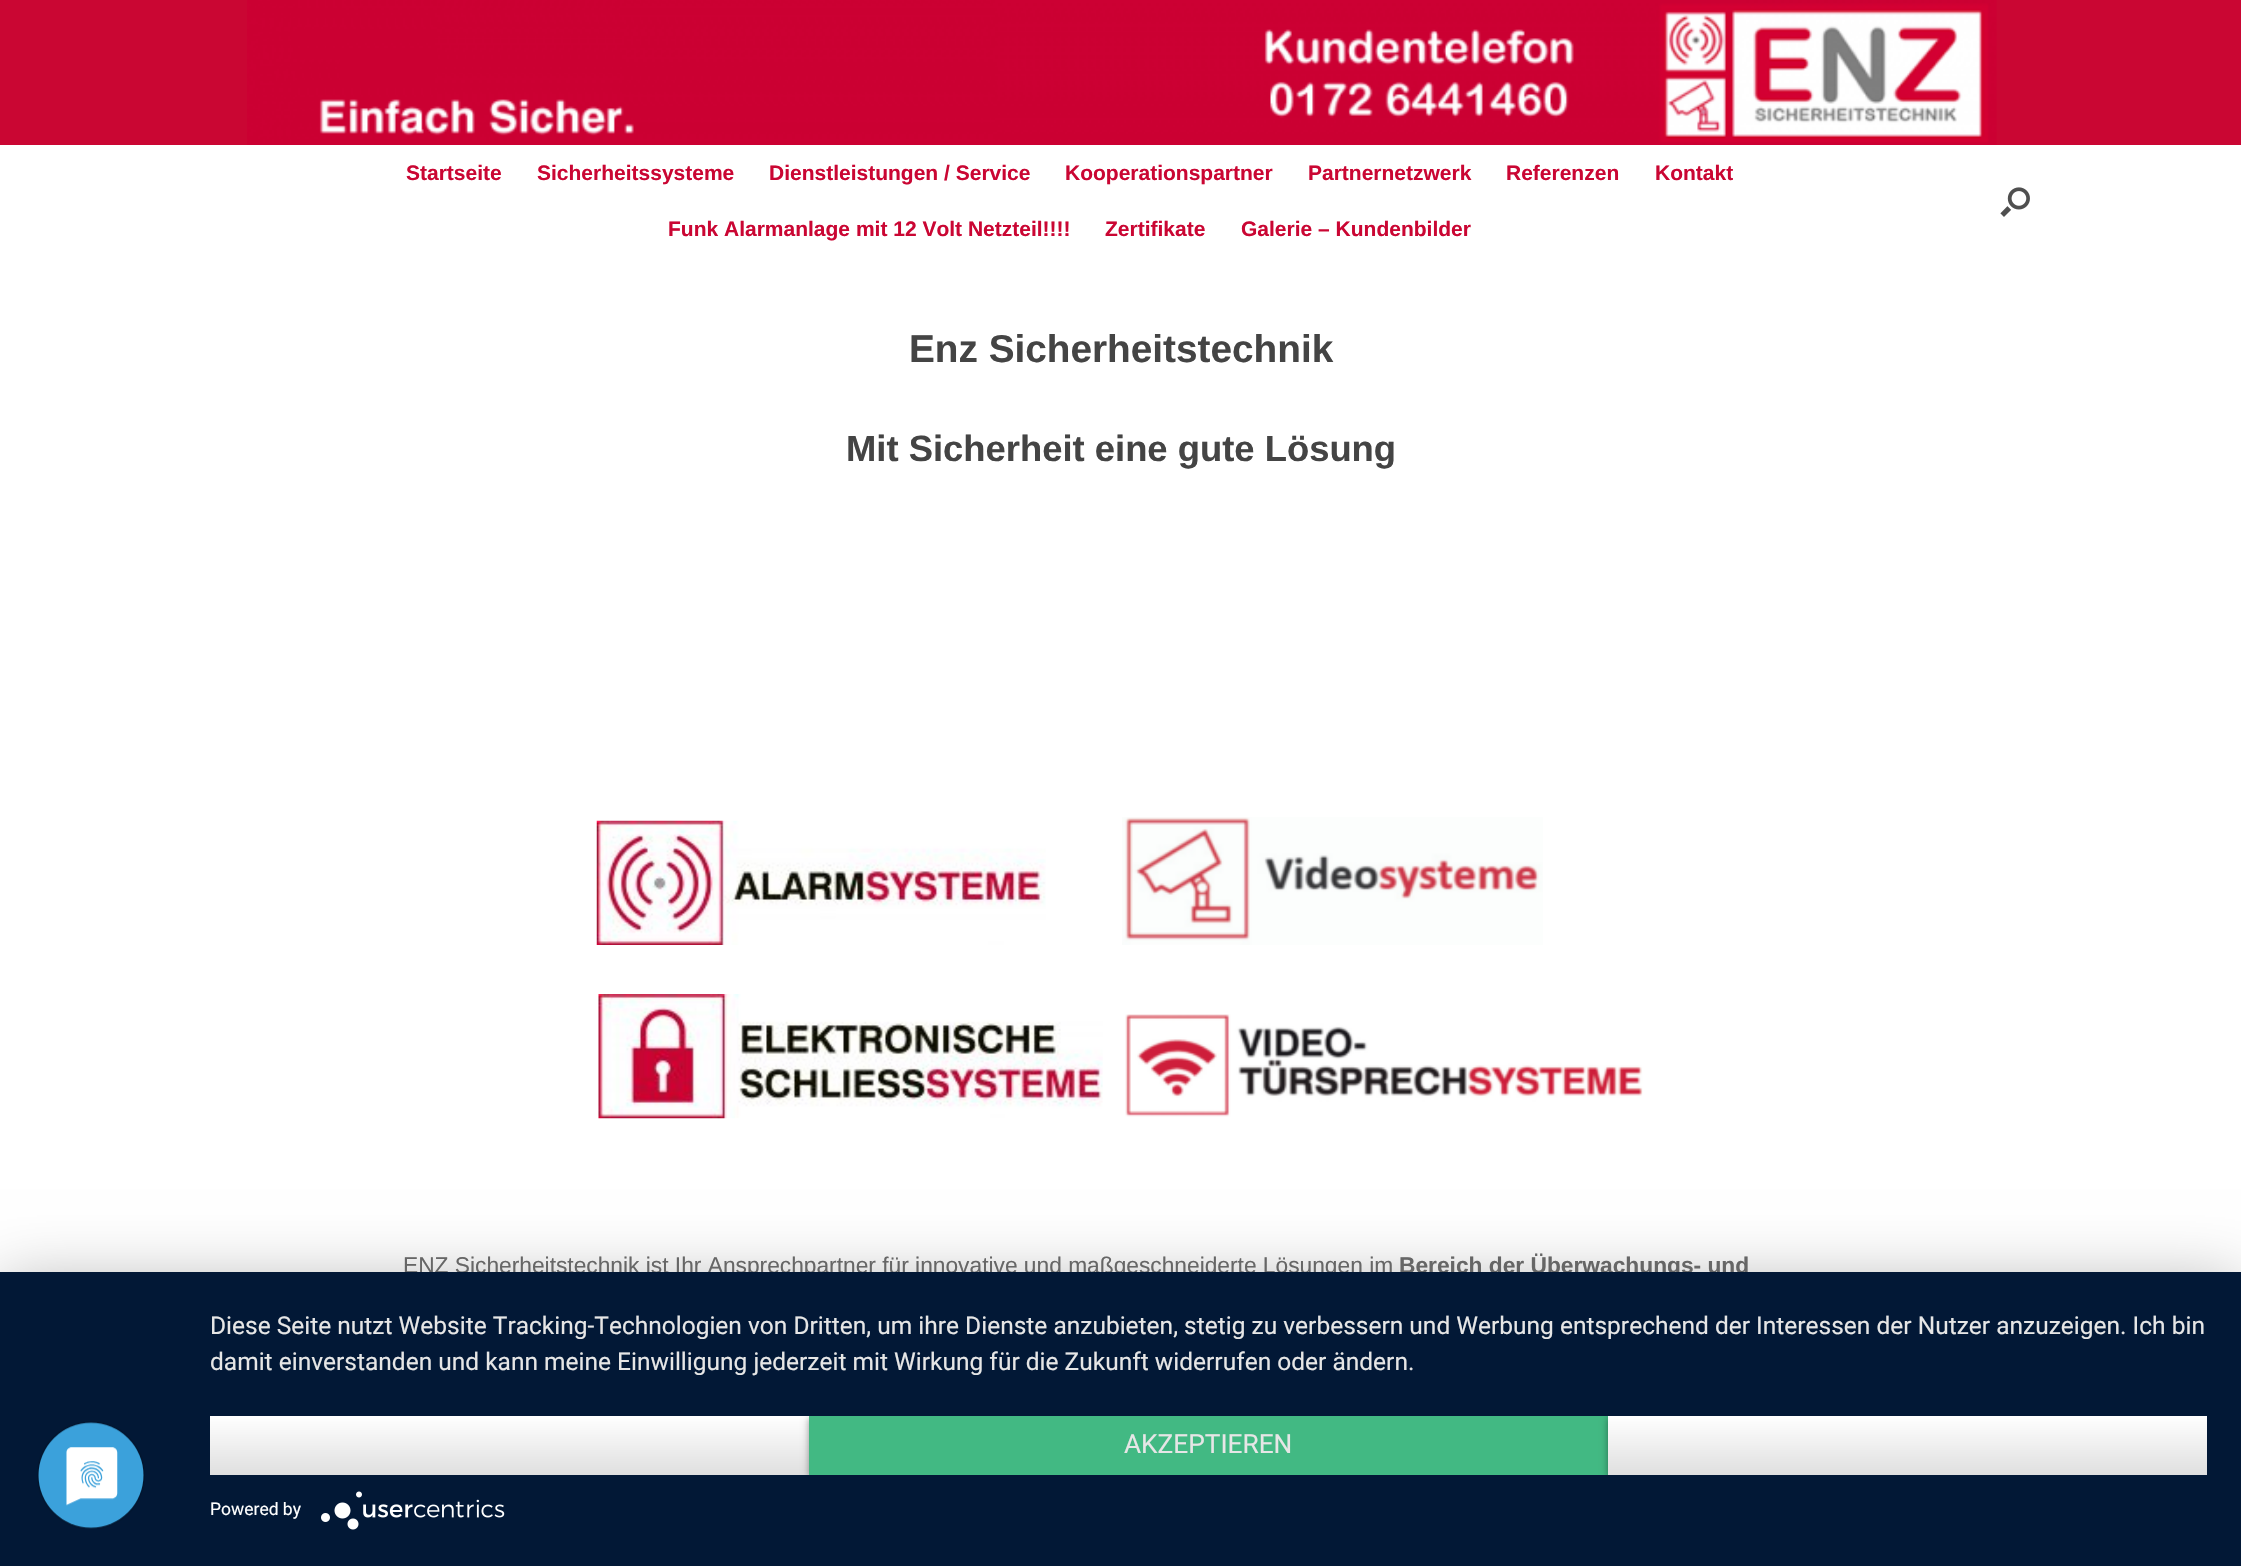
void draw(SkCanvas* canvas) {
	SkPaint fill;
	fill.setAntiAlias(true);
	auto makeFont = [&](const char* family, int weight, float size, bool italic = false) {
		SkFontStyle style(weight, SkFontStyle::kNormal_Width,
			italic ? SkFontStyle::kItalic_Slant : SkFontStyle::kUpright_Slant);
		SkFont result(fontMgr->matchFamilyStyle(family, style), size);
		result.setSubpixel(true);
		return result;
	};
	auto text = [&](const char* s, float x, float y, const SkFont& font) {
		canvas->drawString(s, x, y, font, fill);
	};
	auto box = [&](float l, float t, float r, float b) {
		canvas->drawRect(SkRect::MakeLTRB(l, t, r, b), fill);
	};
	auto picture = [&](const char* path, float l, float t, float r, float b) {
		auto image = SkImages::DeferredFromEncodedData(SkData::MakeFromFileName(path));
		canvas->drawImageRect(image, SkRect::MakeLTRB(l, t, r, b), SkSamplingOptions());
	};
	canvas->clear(0xFFCA0633);
	picture("image0.png", 247, 0, 1997, 145);
	fill.setColor(0xFFFFFFFF);
	box(0, 145, 2241, 1272);
	picture("image1.png", 2000, 187, 2030, 217);
	picture("image2.png", 596, 820, 1046, 945);
	picture("image3.png", 1122, 817, 1543, 945);
	picture("image4.png", 598, 994, 1103, 1119);
	picture("image5.png", 1125, 1014, 1643, 1117);
	fill.setColor(0x4D000000);
	fill.setMaskFilter(SkMaskFilter::MakeBlur(kNormal_SkBlurStyle, 31.5f));
	canvas->drawRect(SkRect::MakeLTRB(0, 1283, 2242, 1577), fill);
	fill.setMaskFilter(nullptr);
	auto font1 = makeFont("Liberation Sans", 700, 21);
	fill.setColor(0xFFCA0633);
	text("Startseite", 406, 180, font1);
	text("Sicherheitssysteme", 537, 180, font1);
	text("Dienstleistungen / Service", 769, 180, font1);
	text("Kooperationspartner", 1065, 180, font1);
	text("Partnernetzwerk", 1308, 180, font1);
	text("Referenzen", 1506, 180, font1);
	text("Kontakt", 1655, 180, font1);
	text("Funk Alarmanlage mit 12 Volt Netzteil!!!!", 668, 236, font1);
	text("Zertifikate", 1105, 236, font1);
	text("Galerie – Kundenbilder", 1241, 236, font1);
	auto font2 = makeFont("Liberation Sans", 700, 38.75f);
	fill.setColor(0xFF444444);
	text("Enz Sicherheitstechnik", 909, 362, font2);
	auto font3 = makeFont("Liberation Sans", 700, 36.4f);
	text("Mit Sicherheit eine gute Lösung", 846, 461, font3);
	auto font4 = makeFont("Liberation Sans", 400, 22.75f);
	fill.setColor(0xFF666666);
	text("ENZ Sicherheitstechnik ist Ihr Ansprechpartner für innovative und maßgeschneiderte Lösungen im", 403, 1273, font4);
	auto font5 = makeFont("Liberation Sans", 700, 22.75f);
	text("Bereich der Überwachungs- und", 1399, 1273, font5);
	fill.setColor(0xFF021836);
	box(0, 1272, 2241, 1566);
	picture("image6.png", 37, 1421, 145, 1529);
	auto font6 = makeFont("Roboto", 400, 24.5f);
	fill.setColor(0xFFE6E6E6);
	text("Diese Seite nutzt Website Tracking-Technologien von Dritten, um ihre Dienste anzubieten, stetig zu verbessern und Werbung entsprechend der Interessen der Nutzer anzuzeigen. Ich bin", 210, 1334, font6);
	text("damit einverstanden und kann meine Einwilligung jederzeit mit Wirkung für die Zukunft widerrufen oder ändern.", 210, 1370, font6);
	{
		const SkColor colors[] = {0xFFDFDFDF, 0xFFFFFFFF};
		const float stops[] = {0, 1};
		const SkPoint ends[] = {{210, 1475}, {210, 1416}};
		fill.setShader(SkGradientShader::MakeLinear(ends, colors, stops, 2, SkTileMode::kClamp));
		fill.setAlpha(255);
	}
	box(210, 1416, 809, 1475);
	canvas->save();
	canvas->clipRect(SkRect::MakeLTRB(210, 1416, 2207, 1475));
	fill.setShader(nullptr);
	fill.setColor(0x66000000);
	fill.setMaskFilter(SkMaskFilter::MakeBlur(kNormal_SkBlurStyle, 3.5f));
	canvas->drawRect(SkRect::MakeLTRB(809, 1418, 1608, 1477), fill);
	fill.setMaskFilter(nullptr);
	canvas->restore();
	fill.setColor(0xFF42B983);
	box(809, 1416, 1608, 1475);
	auto font7 = makeFont("Roboto", 400, 26.25f);
	fill.setColor(0xFFE6E6E6);
	text("AKZEPTIEREN", 1124, 1453, font7);
	canvas->save();
	canvas->clipRect(SkRect::MakeLTRB(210, 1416, 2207, 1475));
	fill.setColor(0x66000000);
	fill.setMaskFilter(SkMaskFilter::MakeBlur(kNormal_SkBlurStyle, 3.5f));
	canvas->drawRect(SkRect::MakeLTRB(1608, 1418, 2207, 1477), fill);
	fill.setMaskFilter(nullptr);
	canvas->restore();
	{
		const SkColor colors[] = {0xFFDFDFDF, 0xFFFFFFFF};
		const float stops[] = {0, 1};
		const SkPoint ends[] = {{1608, 1475}, {1608, 1416}};
		fill.setShader(SkGradientShader::MakeLinear(ends, colors, stops, 2, SkTileMode::kClamp));
		fill.setAlpha(255);
	}
	box(1608, 1416, 2207, 1475);
	auto font8 = makeFont("Roboto", 400, 17.5f);
	fill.setShader(nullptr);
	fill.setColor(0xFFFFFFFF);
	text("Powered by", 210, 1515, font8);
	picture("image7.png", 321, 1491, 505, 1530);
}
